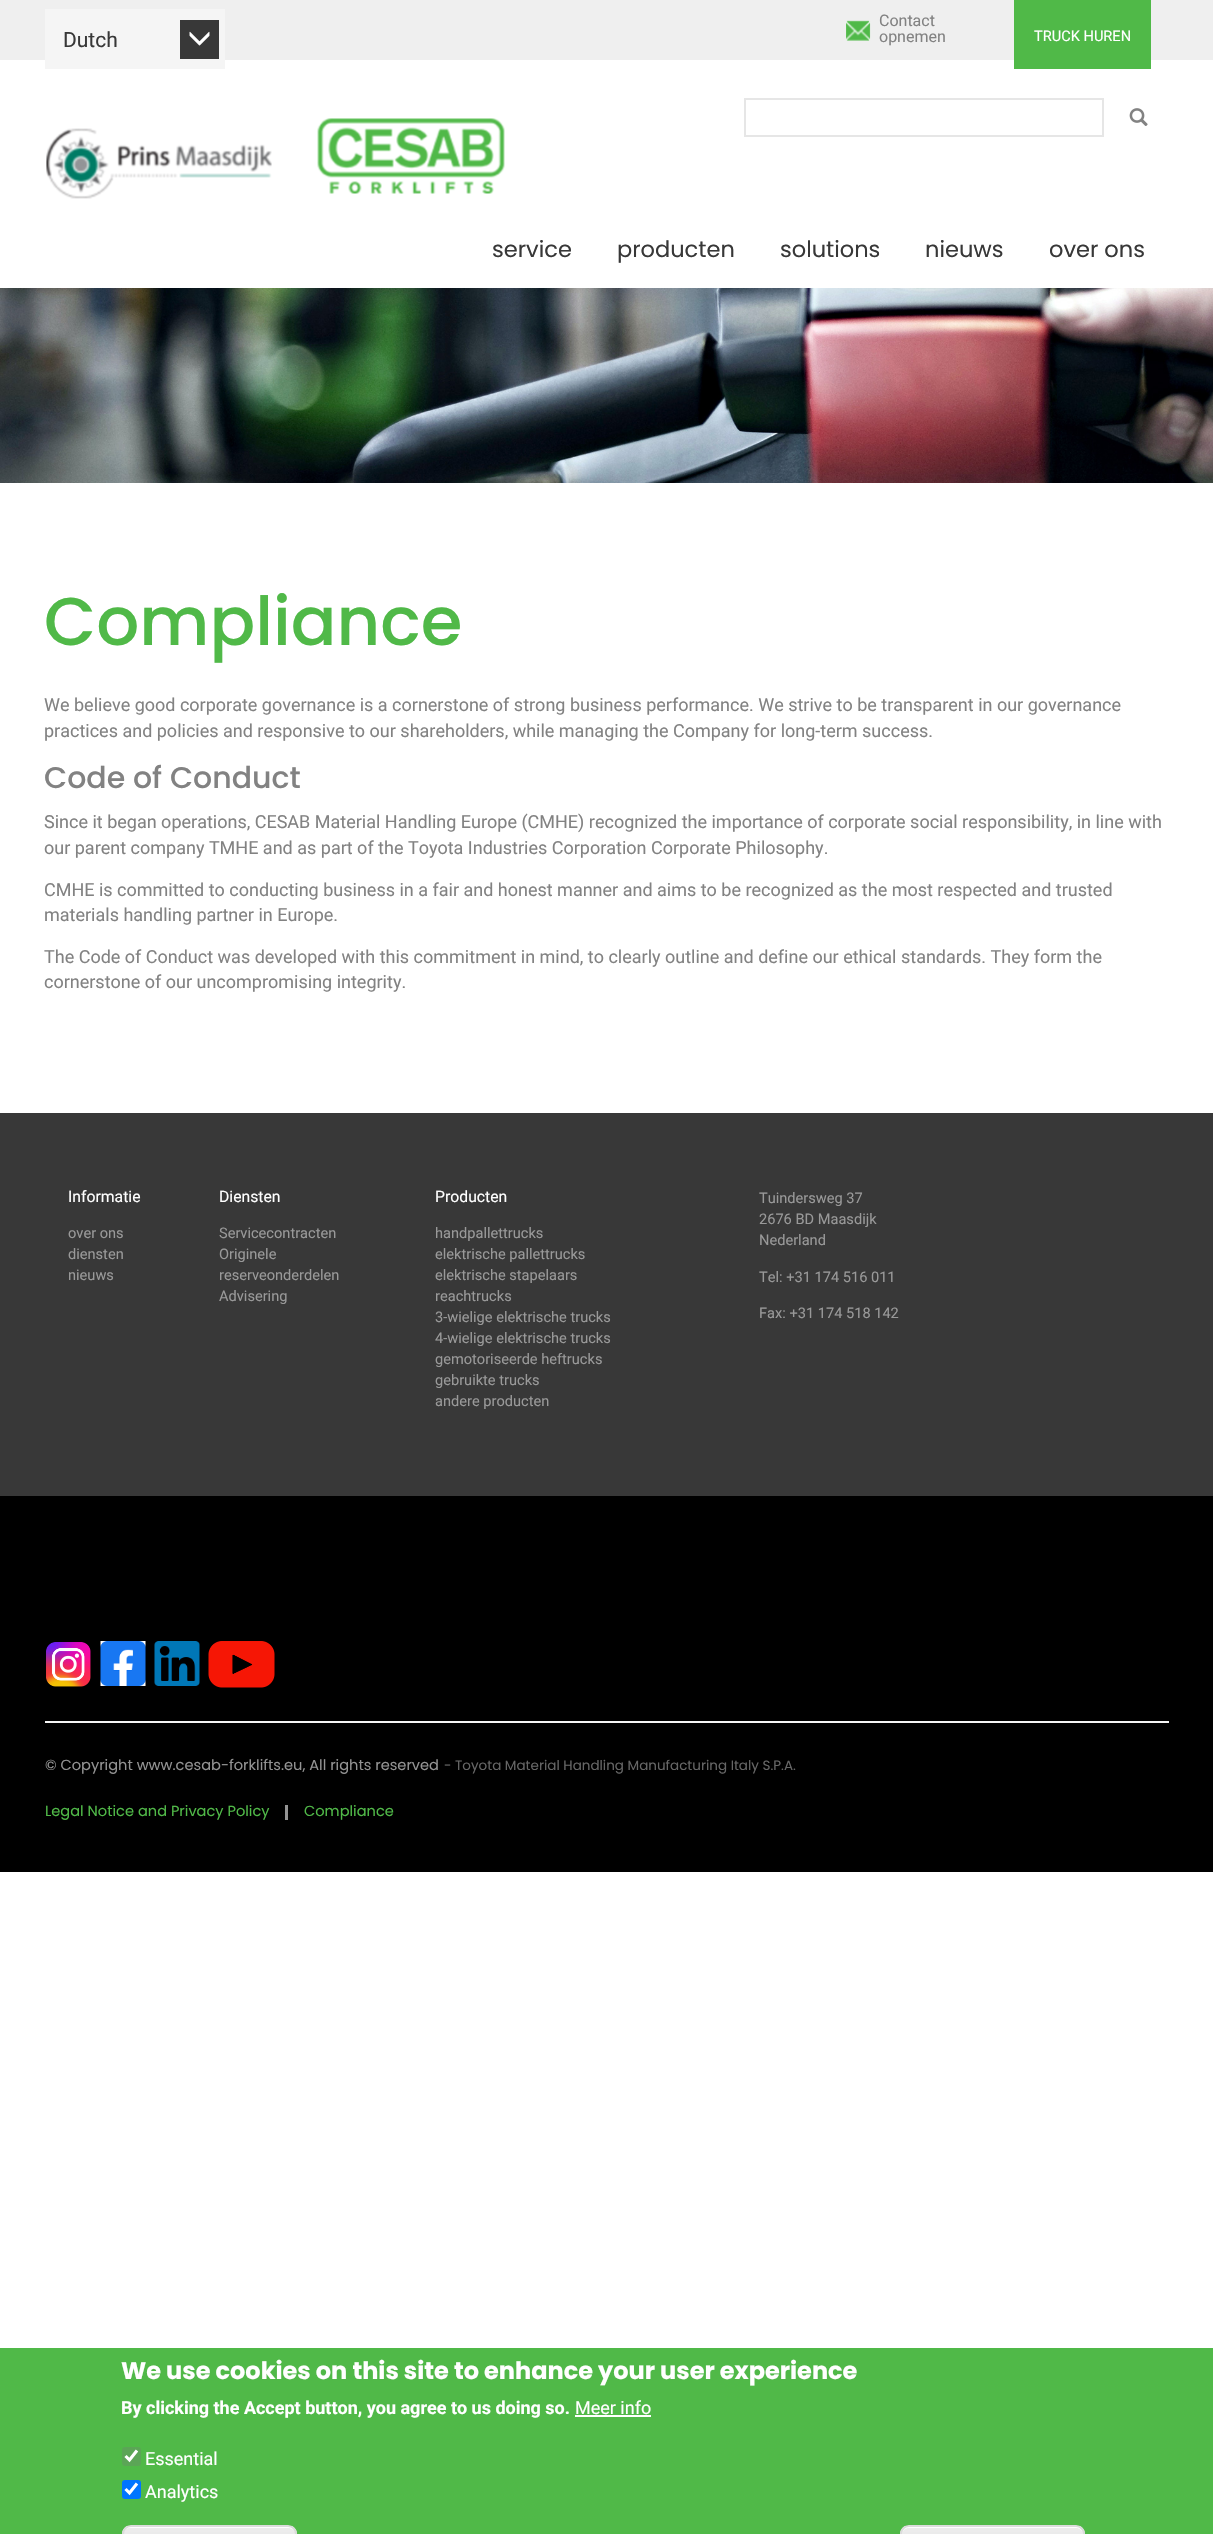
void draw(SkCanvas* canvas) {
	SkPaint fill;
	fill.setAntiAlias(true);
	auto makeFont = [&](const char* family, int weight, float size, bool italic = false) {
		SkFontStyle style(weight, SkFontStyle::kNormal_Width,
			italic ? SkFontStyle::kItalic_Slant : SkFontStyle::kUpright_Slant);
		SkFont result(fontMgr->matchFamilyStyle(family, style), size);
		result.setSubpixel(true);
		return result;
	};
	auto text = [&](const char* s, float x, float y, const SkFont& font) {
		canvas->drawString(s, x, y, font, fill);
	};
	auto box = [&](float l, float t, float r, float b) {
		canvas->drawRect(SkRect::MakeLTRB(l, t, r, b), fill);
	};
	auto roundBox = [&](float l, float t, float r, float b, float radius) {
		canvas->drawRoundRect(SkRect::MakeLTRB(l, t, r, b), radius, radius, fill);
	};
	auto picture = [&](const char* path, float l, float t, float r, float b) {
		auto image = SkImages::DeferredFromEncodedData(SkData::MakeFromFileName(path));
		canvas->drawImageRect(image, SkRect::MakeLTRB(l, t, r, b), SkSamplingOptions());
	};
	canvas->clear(0xFFFFFFFF);
	fill.setColor(0xFFEFEFEF);
	box(0, 0, 1213, 60);
	fill.setColor(0xFFF5F5F5);
	box(45, 9, 225, 69);
	fill.setColor(0xFF383838);
	box(180, 20, 219, 59);
	picture("image0.png", 189, 31, 210, 46);
	picture("image1.png", 846, 20, 871, 41);
	fill.setColor(0xFF50B948);
	box(1014, 0, 1151, 69);
	picture("image2.png", 46, 128, 272, 199);
	picture("image3.png", 317, 118, 505, 194);
	fill.setStyle(SkPaint::kStroke_Style);
	fill.setStrokeWidth(2);
	fill.setColor(0xFFE6E6E6);
	canvas->drawRect(SkRect::MakeLTRB(745, 99, 1103, 136), fill);
	picture("image4.png", 1129, 108, 1148, 126);
	picture("image5.png", 0, 288, 1213, 483);
	fill.setStyle(SkPaint::kFill_Style);
	fill.setColor(0xFF383838);
	box(0, 1113, 1213, 1496);
	fill.setColor(0xFF000000);
	box(0, 1496, 1213, 1872);
	picture("image6.png", 46, 1642, 91, 1687);
	picture("image7.png", 100, 1641, 146, 1686);
	picture("image8.png", 154, 1641, 200, 1686);
	picture("image9.png", 208, 1641, 275, 1688);
	fill.setColor(0xFFF5F5F5);
	box(45, 1721, 1169, 1723);
	fill.setColor(0xFF939393);
	box(285, 1805, 288, 1820);
	fill.setColor(0xFF50B948);
	box(0, 2348, 1213, 2534);
	fill.setColor(0xFFFFFFFF);
	box(575, 2415, 651, 2417);
	fill.setColor(0xFF5BA556);
	roundBox(122, 2447, 141, 2466, 3);
	fill.setStyle(SkPaint::kStroke_Style);
	fill.setStrokeWidth(3.1f);
	fill.setColor(0xFFFFFFFF);
	canvas->drawPath(SkPathBuilder().moveTo(125.5f, 2456).lineTo(129.5f, 2460).lineTo(137, 2450.5f).detach(), fill);
	fill.setStyle(SkPaint::kFill_Style);
	fill.setColor(0xFF0075FF);
	roundBox(122, 2480, 141, 2499, 3);
	fill.setStyle(SkPaint::kStroke_Style);
	fill.setColor(0xFFFFFFFF);
	canvas->drawPath(SkPathBuilder().moveTo(125.5f, 2489).lineTo(129.5f, 2493).lineTo(137, 2483.5f).detach(), fill);
	canvas->save();
	canvas->clipPath(SkPathBuilder().moveTo(131, 2525).lineTo(288, 2525).cubicTo(293, 2525, 297, 2529, 297, 2534).lineTo(297, 2556).cubicTo(297, 2561, 293, 2565, 288, 2565).lineTo(131, 2565).cubicTo(126, 2565, 122, 2561, 122, 2556).lineTo(122, 2534).cubicTo(122, 2529, 126, 2525, 131, 2525).close().detach(), true);
	fill.setStyle(SkPaint::kFill_Style);
	{
		const SkColor colors[] = {0xFFEDEDED, 0xFFDFDFDF};
		const float stops[] = {0.05f, 1};
		const SkPoint ends[] = {{209, 2526}, {209, 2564}};
		fill.setShader(SkGradientShader::MakeLinear(ends, colors, stops, 2, SkTileMode::kClamp));
		fill.setAlpha(255);
	}
	box(122, 2526, 297, 2534);
	canvas->restore();
	fill.setShader(nullptr);
	fill.setColor(0xFFFFFFFF);
	canvas->drawPath(SkPathBuilder().moveTo(130, 2528).lineTo(288, 2528).cubicTo(292, 2528, 296, 2531, 296, 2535).lineTo(296, 2534).cubicTo(296, 2530, 292, 2526, 288, 2526).lineTo(131, 2526).cubicTo(127, 2526, 123, 2530, 123, 2534).lineTo(123, 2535).cubicTo(123, 2531, 126, 2528, 130, 2528).close().detach(), fill);
	fill.setStyle(SkPaint::kStroke_Style);
	fill.setStrokeWidth(2);
	fill.setColor(0xFFDCDCDC);
	canvas->drawRoundRect(SkRect::MakeLTRB(123, 2526, 296, 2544), 8, 8, fill);
	canvas->save();
	canvas->clipPath(SkPathBuilder().moveTo(909, 2525).lineTo(1076, 2525).cubicTo(1081, 2525, 1085, 2529, 1085, 2534).lineTo(1085, 2556).cubicTo(1085, 2561, 1081, 2565, 1076, 2565).lineTo(909, 2565).cubicTo(904, 2565, 900, 2561, 900, 2556).lineTo(900, 2534).cubicTo(900, 2529, 904, 2525, 909, 2525).close().detach(), true);
	fill.setStyle(SkPaint::kFill_Style);
	{
		const SkColor colors[] = {0xFFEDEDED, 0xFFDFDFDF};
		const float stops[] = {0.05f, 1};
		const SkPoint ends[] = {{992, 2526}, {992, 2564}};
		fill.setShader(SkGradientShader::MakeLinear(ends, colors, stops, 2, SkTileMode::kClamp));
		fill.setAlpha(255);
	}
	box(900, 2526, 1085, 2534);
	canvas->restore();
	fill.setShader(nullptr);
	fill.setColor(0xFFFFFFFF);
	canvas->drawPath(SkPathBuilder().moveTo(909, 2528).lineTo(1076, 2528).cubicTo(1080, 2528, 1083, 2531, 1083, 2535).lineTo(1083, 2534).cubicTo(1083, 2530, 1079, 2526, 1075, 2526).lineTo(910, 2526).cubicTo(906, 2526, 902, 2530, 902, 2534).lineTo(902, 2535).cubicTo(902, 2531, 905, 2528, 909, 2528).close().detach(), fill);
	fill.setStyle(SkPaint::kStroke_Style);
	fill.setColor(0xFFDCDCDC);
	canvas->drawRoundRect(SkRect::MakeLTRB(901, 2526, 1084, 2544), 8, 8, fill);
	auto font1 = makeFont("Roboto", 400, 21);
	fill.setStyle(SkPaint::kFill_Style);
	fill.setColor(0xFF383838);
	text("Dutch", 63, 47, font1);
	auto font2 = makeFont("Roboto", 400, 16);
	fill.setColor(0xFF828282);
	text("Contact", 879, 26, font2);
	text("opnemen", 879, 42, font2);
	auto font3 = makeFont("Roboto", 400, 14.6f);
	fill.setColor(0xFFFFFFFF);
	text("TRUCK HUREN", 1034, 41, font3);
	auto font4 = makeFont("Poppins", 400, 22.5f);
	fill.setColor(0xFF383838);
	text("service", 492, 257, font4);
	text("producten", 617, 257, font4);
	text("solutions", 780, 257, font4);
	text("nieuws", 925, 257, font4);
	text("over ons", 1049, 257, font4);
	auto font5 = makeFont("Poppins", 500, 67.5f);
	fill.setColor(0xFF50B948);
	text("Compliance", 44, 645, font5);
	auto font6 = makeFont("Roboto", 400, 18);
	fill.setColor(0xFF828282);
	text("We believe good corporate governance is a cornerstone of strong business performance. We strive to be transparent in our governance", 44, 711, font6);
	text("practices and policies and responsive to our shareholders, while managing the Company for long-term success.", 44, 737, font6);
	auto font7 = makeFont("Poppins", 500, 30);
	text("Code of Conduct", 44, 788, font7);
	text("Since it began operations, CESAB Material Handling Europe (CMHE) recognized the importance of corporate social responsibility, in line with", 44, 828, font6);
	text("our parent company TMHE and as part of the Toyota Industries Corporation Corporate Philosophy.", 44, 854, font6);
	text("CMHE is committed to conducting business in a fair and honest manner and aims to be recognized as the most respected and trusted", 44, 896, font6);
	text("materials handling partner in Europe.", 44, 921, font6);
	text("The Code of Conduct was developed with this commitment in mind, to clearly outline and define our ethical standards. They form the", 44, 963, font6);
	text("cornerstone of our uncompromising integrity.", 44, 988, font6);
	auto font8 = makeFont("Roboto", 400, 15.75f);
	fill.setColor(0xFFFFFFFF);
	text("Informatie", 68, 1202, font8);
	fill.setColor(0xFF999999);
	text("over ons", 68, 1238, font3);
	text("diensten", 68, 1259, font3);
	text("nieuws", 68, 1280, font3);
	fill.setColor(0xFFFFFFFF);
	text("Diensten", 219, 1202, font8);
	fill.setColor(0xFF999999);
	text("Servicecontracten", 219, 1238, font3);
	text("Originele", 219, 1259, font3);
	text("reserveonderdelen", 219, 1280, font3);
	text("Advisering", 219, 1301, font3);
	fill.setColor(0xFFFFFFFF);
	text("Producten", 435, 1202, font8);
	fill.setColor(0xFF999999);
	text("handpallettrucks", 435, 1238, font3);
	text("elektrische pallettrucks", 435, 1259, font3);
	text("elektrische stapelaars", 435, 1280, font3);
	text("reachtrucks", 435, 1301, font3);
	text("3-wielige elektrische trucks", 435, 1322, font3);
	text("4-wielige elektrische trucks", 435, 1343, font3);
	text("gemotoriseerde heftrucks", 435, 1364, font3);
	text("gebruikte trucks", 435, 1385, font3);
	text("andere producten", 435, 1406, font3);
	text("Tuindersweg 37", 759, 1203, font3);
	text("2676 BD Maasdijk", 759, 1224, font3);
	text("Nederland", 759, 1245, font3);
	text("Tel: +31 174 516 011", 759, 1282, font3);
	text("Fax: +31 174 518 142", 759, 1318, font3);
	auto font9 = makeFont("Poppins", 400, 14.6f);
	fill.setColor(0xFF939393);
	text("© Copyright www.cesab-forklifts.eu, All rights reserved", 45, 1770, font9);
	auto font10 = makeFont("Poppins", 400, 13.5f);
	fill.setColor(0xFF666666);
	text("- Toyota Material Handling Manufacturing Italy S.P.A.", 444, 1770, font10);
	fill.setColor(0xFF50B948);
	text("Legal Notice and Privacy Policy", 45, 1816, font9);
	text("Compliance", 304, 1816, font9);
	auto font11 = makeFont("Poppins", 700, 24);
	fill.setColor(0xFFFFFFFF);
	text("We use cookies on this site to enhance your user experience", 121, 2379, font11);
	auto font12 = makeFont("Roboto", 700, 18);
	text("By clicking the Accept button, you agree to us doing so.", 121, 2414, font12);
	text("Meer info", 575, 2414, font6);
	text("Essential", 145, 2465, font6);
	text("Analytics", 145, 2498, font6);
}
